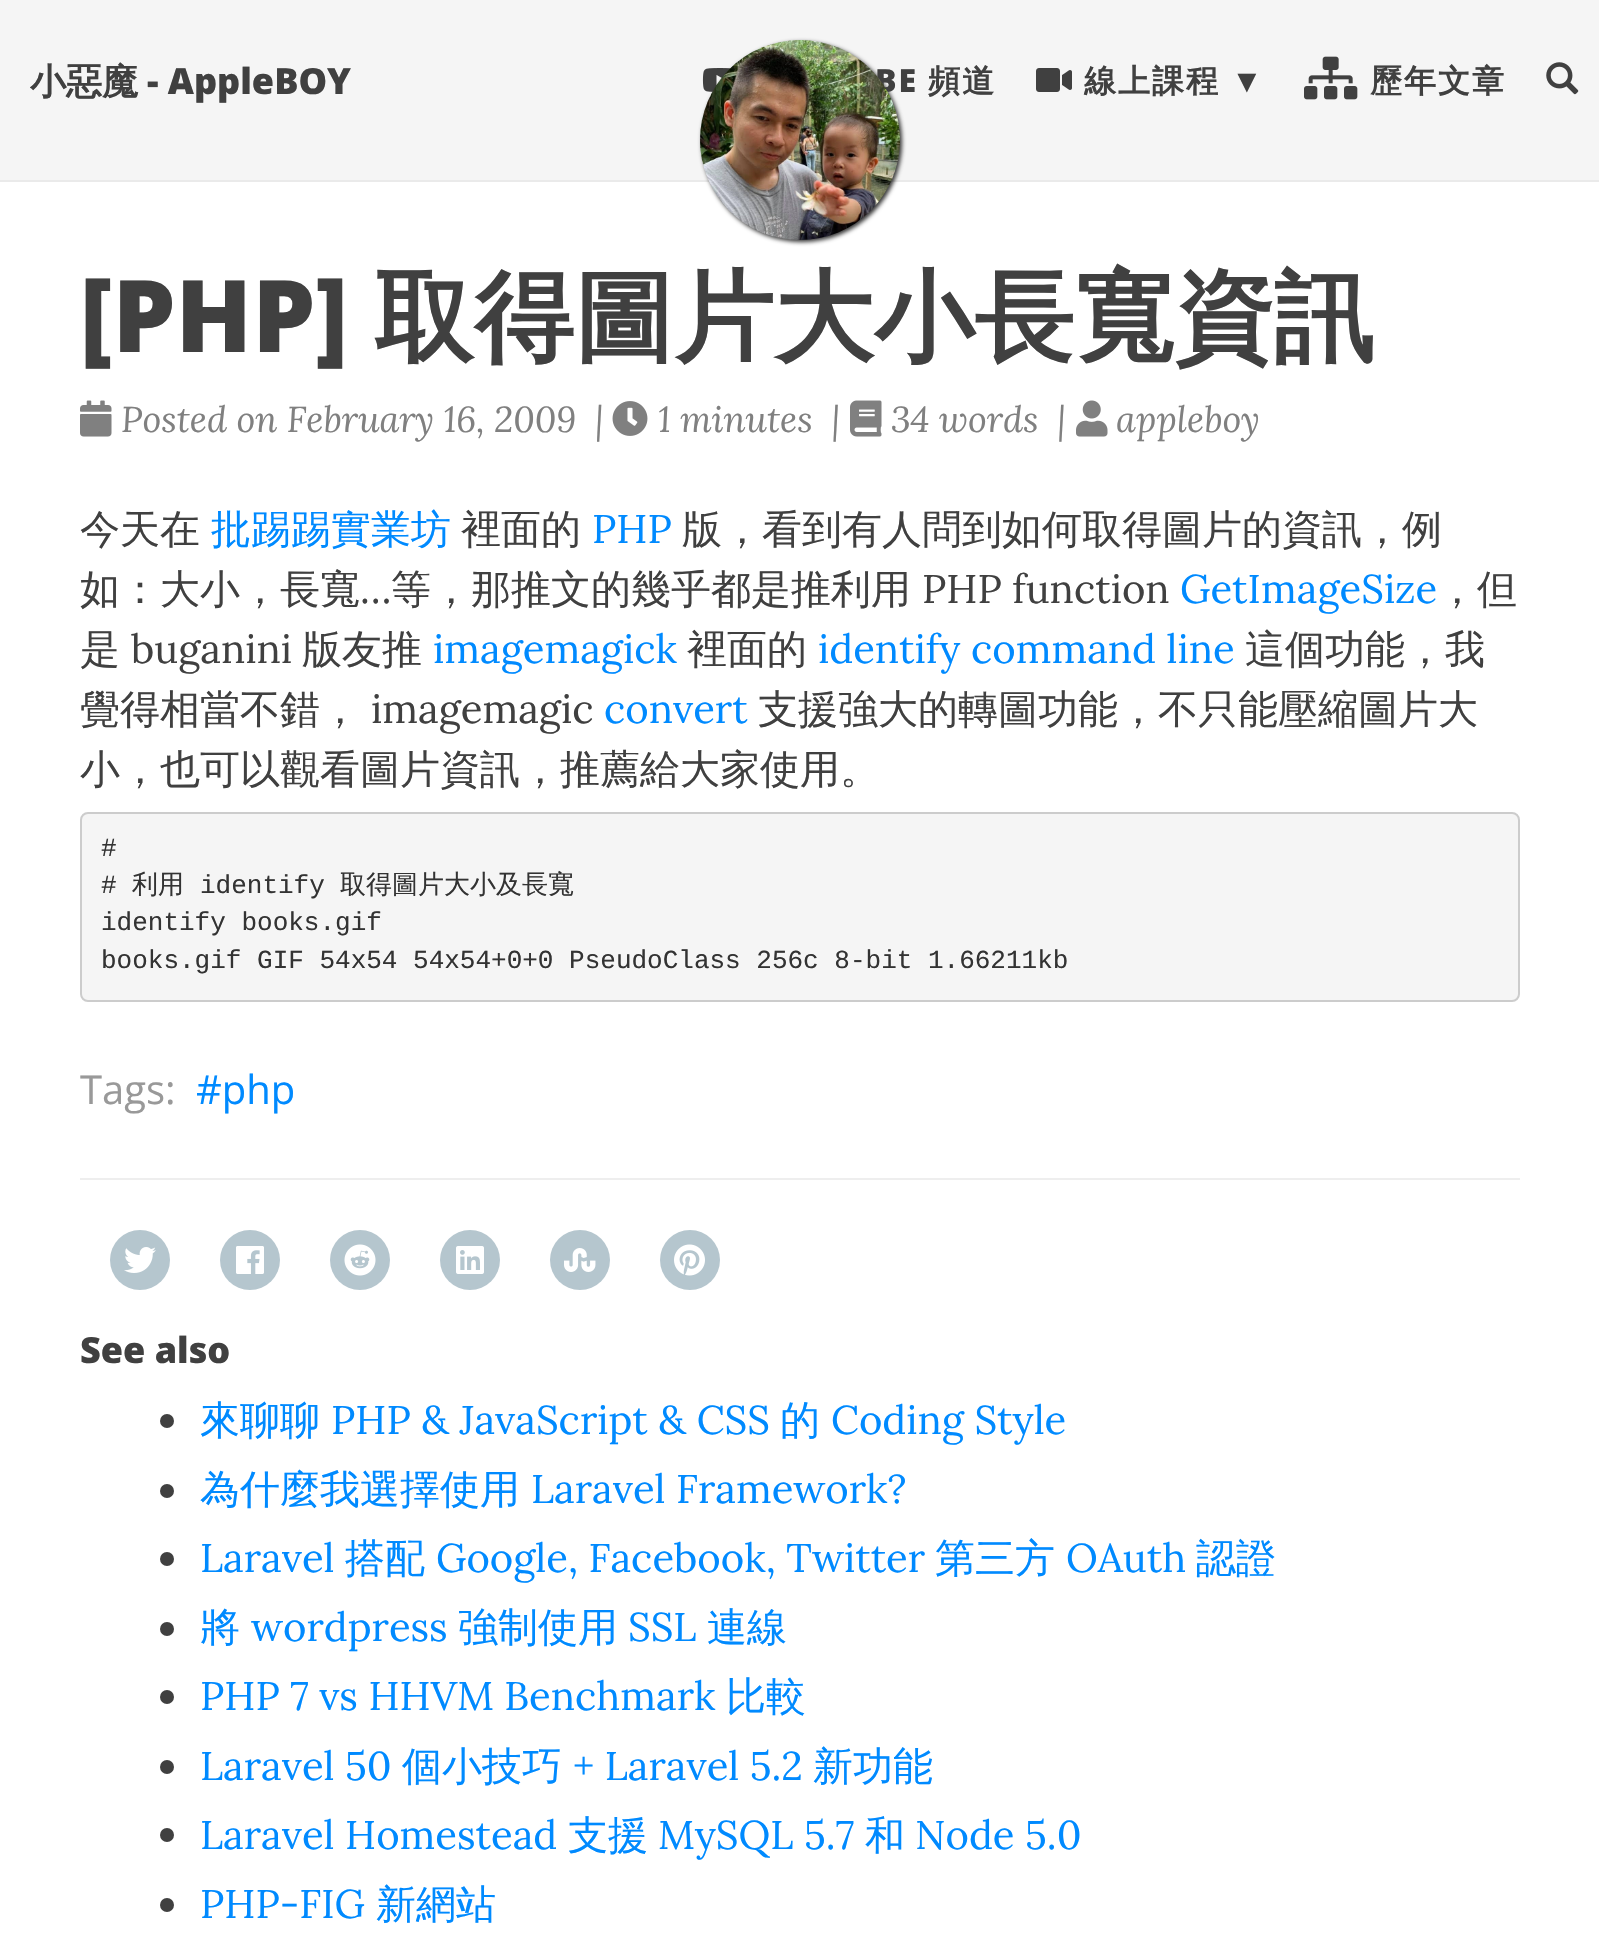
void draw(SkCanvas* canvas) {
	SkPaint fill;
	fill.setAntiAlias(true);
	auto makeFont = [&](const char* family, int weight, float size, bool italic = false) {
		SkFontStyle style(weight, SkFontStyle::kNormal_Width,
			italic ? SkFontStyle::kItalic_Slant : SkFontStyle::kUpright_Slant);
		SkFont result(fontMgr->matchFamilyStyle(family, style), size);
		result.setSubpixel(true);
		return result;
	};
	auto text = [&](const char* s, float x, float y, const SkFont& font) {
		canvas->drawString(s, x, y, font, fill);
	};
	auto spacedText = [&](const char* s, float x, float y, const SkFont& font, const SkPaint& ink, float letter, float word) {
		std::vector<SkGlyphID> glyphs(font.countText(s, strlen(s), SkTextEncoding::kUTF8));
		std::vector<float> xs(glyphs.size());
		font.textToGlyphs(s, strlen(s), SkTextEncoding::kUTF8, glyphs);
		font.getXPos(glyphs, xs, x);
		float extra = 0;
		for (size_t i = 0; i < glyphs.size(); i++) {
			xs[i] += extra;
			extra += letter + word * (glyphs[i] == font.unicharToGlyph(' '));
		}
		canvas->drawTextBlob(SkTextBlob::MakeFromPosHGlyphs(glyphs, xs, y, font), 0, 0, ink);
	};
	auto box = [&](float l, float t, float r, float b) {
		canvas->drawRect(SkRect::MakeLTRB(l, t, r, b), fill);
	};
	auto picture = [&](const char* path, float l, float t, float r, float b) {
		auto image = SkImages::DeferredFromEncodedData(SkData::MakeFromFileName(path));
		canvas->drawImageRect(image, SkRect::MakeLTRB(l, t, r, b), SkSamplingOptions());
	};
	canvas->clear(0xFFFFFFFF);
	fill.setColor(0xFFF5F5F5);
	box(0, 0, 1599, 180);
	fill.setColor(0xFFEAEAEA);
	box(0, 180, 1599, 182);
	picture("image1.png", 702, 68, 731, 92);
	fill.setColor(0xCC000000);
	fill.setMaskFilter(SkMaskFilter::MakeBlur(kNormal_SkBlurStyle, 2));
	canvas->drawRoundRect(SkRect::MakeLTRB(702, 42, 902, 242), 100, 100, fill);
	fill.setMaskFilter(nullptr);
	picture("image2.png", 1036, 68, 1072, 92);
	picture("image3.png", 1304, 56, 1358, 100);
	picture("image4.png", 1546, 62, 1579, 95);
	picture("image5.png", 80, 400, 112, 437);
	picture("image6.png", 612, 401, 648, 436);
	picture("image7.png", 850, 400, 882, 437);
	picture("image8.png", 1076, 400, 1108, 437);
	fill.setColor(0xFFF5F5F5);
	canvas->drawRoundRect(SkRect::MakeLTRB(81, 813, 1519, 1001), 7, 7, fill);
	fill.setStyle(SkPaint::kStroke_Style);
	fill.setStrokeWidth(2);
	fill.setColor(0xFFCCCCCC);
	canvas->drawRoundRect(SkRect::MakeLTRB(81, 813, 1519, 1001), 7, 7, fill);
	fill.setStyle(SkPaint::kFill_Style);
	fill.setColor(0xFFEEEEEE);
	box(80, 1178, 1520, 1180);
	fill.setColor(0xFFB5C6CE);
	canvas->drawCircle(140, 1260, 30, fill);
	picture("image9.png", 124, 1247, 156, 1273);
	canvas->drawCircle(250, 1260, 30, fill);
	picture("image10.png", 236, 1246, 264, 1274);
	canvas->drawCircle(360, 1260, 30, fill);
	picture("image11.png", 344, 1244, 376, 1276);
	canvas->drawCircle(470, 1260, 30, fill);
	picture("image12.png", 456, 1246, 484, 1274);
	canvas->drawCircle(580, 1260, 30, fill);
	picture("image13.png", 564, 1248, 596, 1272);
	canvas->drawCircle(690, 1260, 30, fill);
	picture("image14.png", 674, 1244, 705, 1276);
	fill.setColor(0xFF404040);
	canvas->drawCircle(167, 1421, 7, fill);
	canvas->drawCircle(167, 1491, 7, fill);
	canvas->drawCircle(167, 1559, 7, fill);
	canvas->drawCircle(167, 1629, 7, fill);
	canvas->drawCircle(167, 1697, 7, fill);
	canvas->drawCircle(167, 1767, 7, fill);
	canvas->drawCircle(167, 1835, 7, fill);
	canvas->drawCircle(167, 1905, 7, fill);
	auto font1 = makeFont("WenQuanYi Zen Hei", 700, 36);
	text("小惡魔", 30, 94, font1);
	auto font2 = makeFont("Open Sans", 800, 36);
	text("- AppleBOY", 147, 94, font2);
	auto font3 = makeFont("Open Sans", 800, 32);
	spacedText("BE", 875, 92, font3, fill, 2, 0);
	picture("image0.png", 700, 40, 900, 240);
	auto font4 = makeFont("WenQuanYi Zen Hei", 700, 32);
	spacedText("頻道", 928, 92, font4, fill, 2, 0);
	spacedText("線上課程", 1084, 92, font4, fill, 2, 0);
	auto font5 = makeFont("Liberation Sans", 700, 32);
	spacedText("▼", 1231, 92, font5, fill, 2, 0);
	spacedText("歷年文章", 1370, 92, font4, fill, 2, 0);
	auto font6 = makeFont("Open Sans", 800, 100);
	text("[PHP]", 80, 352, font6);
	auto font7 = makeFont("WenQuanYi Zen Hei", 700, 100);
	text("取得圖片大小長寬資訊", 374, 352, font7);
	auto font8 = makeFont("Lora", 400, 36, true);
	fill.setColor(0xFF808080);
	text("Posted on February 16, 2009  |", 121, 432, font8);
	text("1 minutes  |", 658, 432, font8);
	text("34 words  |", 891, 432, font8);
	text("appleboy", 1116, 432, font8);
	auto font9 = makeFont("WenQuanYi Zen Hei", 500, 40);
	fill.setColor(0xFF404040);
	text("今天在", 80, 543, font9);
	fill.setColor(0xFF008AFF);
	text("批踢踢實業坊", 211, 543, font9);
	fill.setColor(0xFF404040);
	text("裡面的", 461, 543, font9);
	auto font10 = makeFont("Lora", 400, 40);
	fill.setColor(0xFF008AFF);
	text("PHP", 592, 543, font10);
	fill.setColor(0xFF404040);
	text("版，看到有人問到如何取得圖片的資訊，例", 682, 543, font9);
	text("如：大小，長寬", 80, 603, font9);
	text("…", 360, 603, font10);
	text("等，那推文的幾乎都是推利用", 391, 603, font9);
	text("PHP function", 922, 603, font10);
	fill.setColor(0xFF008AFF);
	text("GetImageSize", 1180, 603, font10);
	fill.setColor(0xFF404040);
	text("，但", 1437, 603, font9);
	text("是", 80, 663, font9);
	text("buganini", 131, 663, font10);
	text("版友推", 302, 663, font9);
	fill.setColor(0xFF008AFF);
	text("imagemagick", 433, 663, font10);
	fill.setColor(0xFF404040);
	text("裡面的", 687, 663, font9);
	fill.setColor(0xFF008AFF);
	text("identify command line", 818, 663, font10);
	fill.setColor(0xFF404040);
	text("這個功能，我", 1245, 663, font9);
	text("覺得相當不錯，", 80, 723, font9);
	text("imagemagic", 371, 723, font10);
	fill.setColor(0xFF008AFF);
	text("convert", 604, 723, font10);
	fill.setColor(0xFF404040);
	text("支援強大的轉圖功能，不只能壓縮圖片大", 758, 723, font9);
	text("小，也可以觀看圖片資訊，推薦給大家使用。", 80, 783, font9);
	auto font11 = makeFont("Liberation Mono", 400, 26);
	fill.setColor(0xFF333333);
	text("#", 101, 856, font11);
	text("#", 101, 893, font11);
	auto font12 = makeFont("WenQuanYi Zen Hei", 500, 26);
	text("利用", 132, 893, font12);
	text("identify", 200, 893, font11);
	text("取得圖片大小及長寬", 340, 893, font12);
	text("identify books.gif", 101, 930, font11);
	text("books.gif GIF 54x54 54x54+0+0 PseudoClass 256c 8-bit 1.66211kb", 101, 968, font11);
	auto font13 = makeFont("Open Sans", 400, 40);
	fill.setColor(0xFF999999);
	text("Tags:", 80, 1104, font13);
	fill.setColor(0xFF008AFF);
	text("#php", 196, 1104, font13);
	fill.setColor(0xFF404040);
	text("See also", 80, 1363, font2);
	fill.setColor(0xFF008AFF);
	text("來聊聊", 200, 1434, font9);
	text("PHP & JavaScript & CSS", 331, 1434, font10);
	text("的", 780, 1434, font9);
	text("Coding Style", 831, 1434, font10);
	text("為什麼我選擇使用", 200, 1503, font9);
	text("Laravel Framework?", 531, 1503, font10);
	text("Laravel", 200, 1572, font10);
	text("搭配", 345, 1572, font9);
	text("Google, Facebook, Twitter", 436, 1572, font10);
	text("第三方", 935, 1572, font9);
	text("OAuth", 1066, 1572, font10);
	text("認證", 1196, 1572, font9);
	text("將", 200, 1641, font9);
	text("wordpress", 251, 1641, font10);
	text("強制使用", 458, 1641, font9);
	text("SSL", 628, 1641, font10);
	text("連線", 707, 1641, font9);
	text("PHP 7 vs HHVM Benchmark", 200, 1710, font10);
	text("比較", 726, 1710, font9);
	text("Laravel 50", 200, 1780, font10);
	text("個小技巧", 402, 1780, font9);
	text("+ Laravel 5.2", 573, 1780, font10);
	text("新功能", 813, 1780, font9);
	text("Laravel Homestead", 200, 1849, font10);
	text("支援", 568, 1849, font9);
	text("MySQL 5.7", 658, 1849, font10);
	text("和", 865, 1849, font9);
	text("Node 5.0", 915, 1849, font10);
	text("PHP-FIG", 200, 1918, font10);
	text("新網站", 376, 1918, font9);
}
